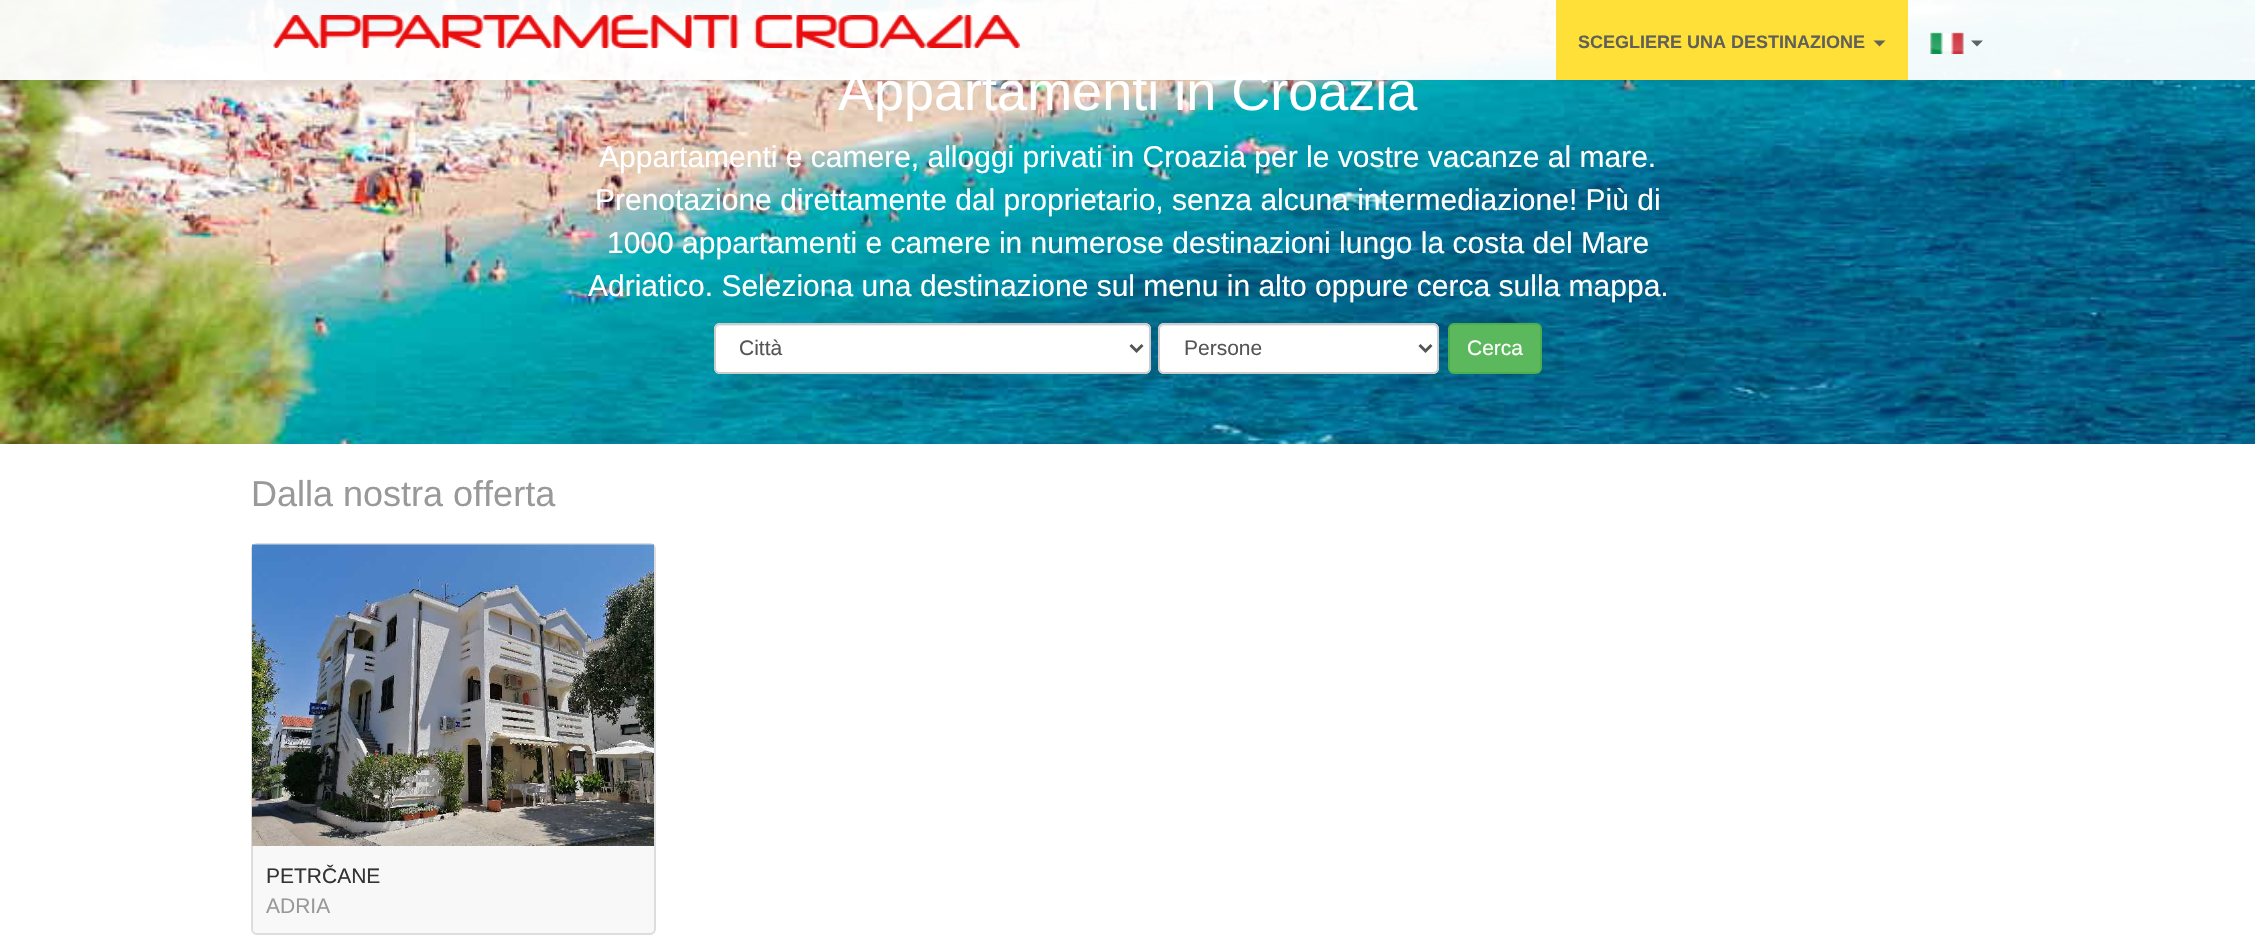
void draw(SkCanvas* canvas) {
	SkPaint fill;
	fill.setAntiAlias(true);
	auto makeFont = [&](const char* family, int weight, float size, bool italic = false) {
		SkFontStyle style(weight, SkFontStyle::kNormal_Width,
			italic ? SkFontStyle::kItalic_Slant : SkFontStyle::kUpright_Slant);
		SkFont result(fontMgr->matchFamilyStyle(family, style), size);
		result.setSubpixel(true);
		return result;
	};
	auto text = [&](const char* s, float x, float y, const SkFont& font) {
		canvas->drawString(s, x, y, font, fill);
	};
	auto box = [&](float l, float t, float r, float b) {
		canvas->drawRect(SkRect::MakeLTRB(l, t, r, b), fill);
	};
	auto roundBox = [&](float l, float t, float r, float b, float radius) {
		canvas->drawRoundRect(SkRect::MakeLTRB(l, t, r, b), radius, radius, fill);
	};
	auto picture = [&](const char* path, float l, float t, float r, float b) {
		auto image = SkImages::DeferredFromEncodedData(SkData::MakeFromFileName(path));
		canvas->drawImageRect(image, SkRect::MakeLTRB(l, t, r, b), SkSamplingOptions());
	};
	canvas->clear(0xFFFFFFFF);
	picture("image2.png", 0, 0, 2255, 444);
	canvas->save();
	canvas->clipPath(SkPathBuilder(SkPathFillType::kEvenOdd).moveTo(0, 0).lineTo(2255, 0).lineTo(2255, 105).lineTo(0, 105).close().moveTo(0, 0).lineTo(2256, 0).lineTo(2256, 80).lineTo(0, 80).close().detach(), true);
	fill.setColor(0x1A000000);
	fill.setMaskFilter(SkMaskFilter::MakeBlur(kNormal_SkBlurStyle, 7.5f));
	canvas->drawRect(SkRect::MakeLTRB(0, 2, 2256, 81), fill);
	fill.setMaskFilter(nullptr);
	canvas->restore();
	fill.setColor(0xFFFFFFFF);
	roundBox(714, 323, 1151, 374, 6);
	fill.setColor(0xFFECECEC);
	canvas->drawPath(SkPathBuilder().moveTo(720, 326).lineTo(1144, 326).cubicTo(1147, 326, 1149, 328, 1149, 330).cubicTo(1149, 327, 1147, 324, 1144, 324).lineTo(721, 324).cubicTo(718, 324, 716, 327, 716, 330).cubicTo(716, 328, 718, 326, 720, 326).close().detach(), fill);
	fill.setStyle(SkPaint::kStroke_Style);
	fill.setStrokeWidth(2);
	fill.setColor(0xFFCCCCCC);
	canvas->drawRoundRect(SkRect::MakeLTRB(715, 324, 1150, 373), 5, 5, fill);
	fill.setStrokeWidth(3);
	fill.setColor(0xFF555555);
	canvas->drawPath(SkPathBuilder().moveTo(1130.5f, 345).lineTo(1136.5f, 351).lineTo(1142.5f, 345).detach(), fill);
	fill.setStyle(SkPaint::kFill_Style);
	fill.setColor(0xFFFFFFFF);
	roundBox(1158, 323, 1439, 374, 6);
	fill.setColor(0xFFECECEC);
	canvas->drawPath(SkPathBuilder().moveTo(1164, 326).lineTo(1432, 326).cubicTo(1435, 326, 1437, 328, 1437, 330).lineTo(1437, 329).cubicTo(1437, 326, 1435, 324, 1432, 324).lineTo(1165, 324).cubicTo(1162, 324, 1160, 326, 1160, 329).lineTo(1160, 330).cubicTo(1160, 328, 1162, 326, 1164, 326).close().detach(), fill);
	fill.setStyle(SkPaint::kStroke_Style);
	fill.setStrokeWidth(2);
	fill.setColor(0xFFCCCCCC);
	canvas->drawRoundRect(SkRect::MakeLTRB(1159, 324, 1438, 373), 5, 5, fill);
	fill.setStrokeWidth(3);
	fill.setColor(0xFF555555);
	canvas->drawPath(SkPathBuilder().moveTo(1419.5f, 345).lineTo(1425.5f, 351).lineTo(1431.5f, 345).detach(), fill);
	fill.setStyle(SkPaint::kFill_Style);
	fill.setColor(0xFF5CB85C);
	canvas->drawRoundRect(SkRect::MakeLTRB(1449, 324, 1541, 373), 5, 5, fill);
	fill.setStyle(SkPaint::kStroke_Style);
	fill.setStrokeWidth(2);
	fill.setColor(0xFF4CAE4C);
	canvas->drawRoundRect(SkRect::MakeLTRB(1449, 324, 1541, 373), 5, 5, fill);
	fill.setStyle(SkPaint::kFill_Style);
	fill.setColor(0xFFF8F8F8);
	canvas->drawRoundRect(SkRect::MakeLTRB(252, 544, 655, 934), 5, 5, fill);
	fill.setStyle(SkPaint::kStroke_Style);
	fill.setColor(0xFFDDDDDD);
	canvas->drawRoundRect(SkRect::MakeLTRB(252, 544, 655, 934), 5, 5, fill);
	picture("image3.png", 252, 544, 654, 846);
	auto font1 = makeFont("Liberation Sans", 400, 54);
	fill.setStyle(SkPaint::kFill_Style);
	fill.setColor(0xFFFFFFFF);
	text("Appartamenti in Croazia", 838, 110, font1);
	fill.setColor(0xF2FFFFFF);
	box(0, 0, 2255, 80);
	fill.setColor(0xFF626262);
	canvas->drawPath(SkPathBuilder().moveTo(1971, 40.5f).lineTo(1983, 40.5f).lineTo(1977, 46.5f).close().detach(), fill);
	picture("image1.png", 1930, 32, 1964, 54);
	fill.setColor(0xF2FFDE2D);
	box(1556, 0, 1908, 80);
	fill.setColor(0xFF626158);
	canvas->drawPath(SkPathBuilder().moveTo(1873.5f, 40.5f).lineTo(1885.5f, 40.5f).lineTo(1879.5f, 46.5f).close().detach(), fill);
	auto font2 = makeFont("Liberation Sans", 700, 18);
	text("SCEGLIERE UNA DESTINAZIONE", 1578, 48, font2);
	picture("image0.png", 273, 15, 1020, 48);
	auto font3 = makeFont("Liberation Sans", 400, 30);
	fill.setColor(0xFFFFFFFF);
	text("Appartamenti e camere, alloggi privati in Croazia per le vostre vacanze al mare.", 599, 167, font3);
	text("Prenotazione direttamente dal proprietario, senza alcuna intermediazione! Più di", 595, 210, font3);
	text("1000 appartamenti e camere in numerose destinazioni lungo la costa del Mare", 607, 253, font3);
	text("Adriatico. Seleziona una destinazione sul menu in alto oppure cerca sulla mappa.", 588, 296, font3);
	auto font4 = makeFont("Liberation Sans", 400, 21);
	fill.setColor(0xFF555555);
	text("Città", 739, 355, font4);
	text("Persone", 1184, 355, font4);
	fill.setColor(0xFFFFFFFF);
	text("Cerca", 1467, 355, font4);
	auto font5 = makeFont("Liberation Sans", 400, 36);
	fill.setColor(0xFF999999);
	text("Dalla nostra offerta", 251, 506, font5);
	fill.setColor(0xFF333333);
	text("PETRČANE", 266, 883, font4);
	fill.setColor(0xFF999999);
	text("ADRIA", 266, 913, font4);
}
